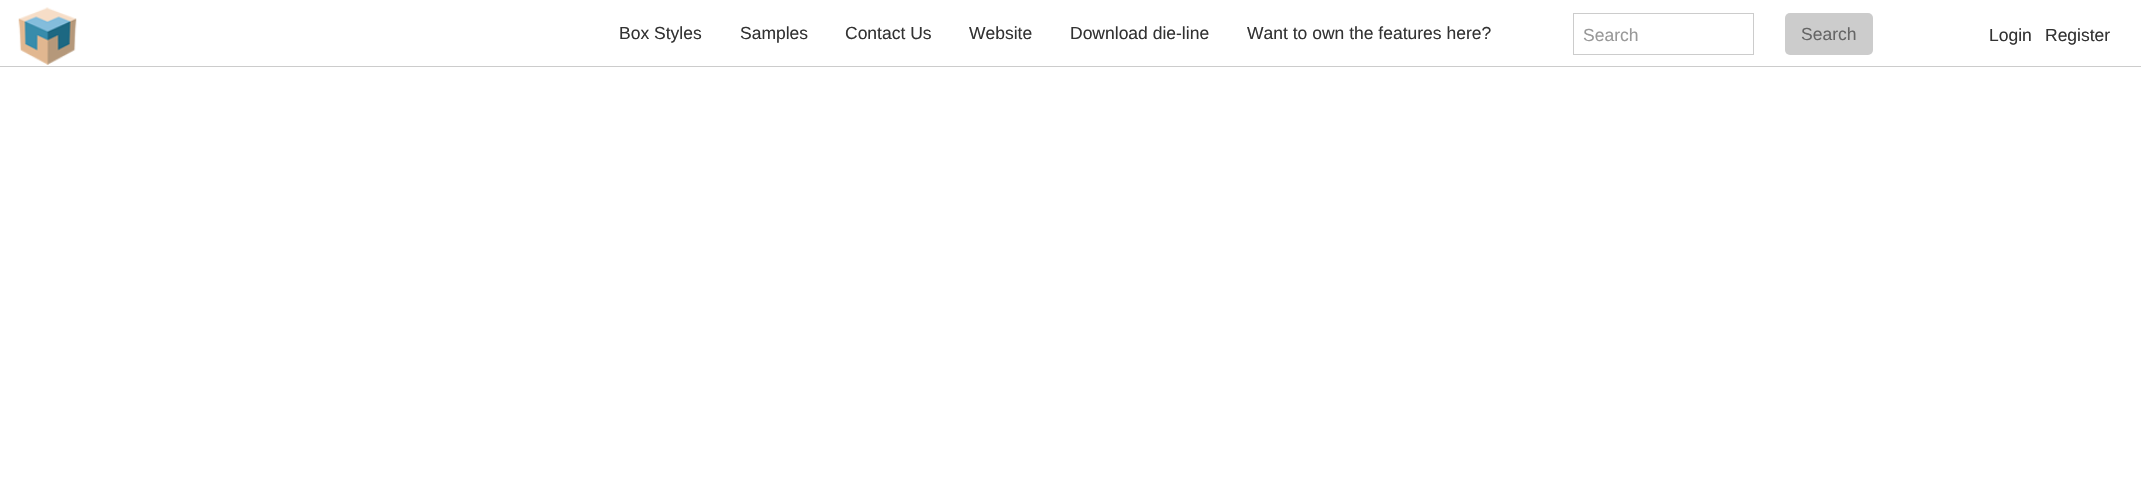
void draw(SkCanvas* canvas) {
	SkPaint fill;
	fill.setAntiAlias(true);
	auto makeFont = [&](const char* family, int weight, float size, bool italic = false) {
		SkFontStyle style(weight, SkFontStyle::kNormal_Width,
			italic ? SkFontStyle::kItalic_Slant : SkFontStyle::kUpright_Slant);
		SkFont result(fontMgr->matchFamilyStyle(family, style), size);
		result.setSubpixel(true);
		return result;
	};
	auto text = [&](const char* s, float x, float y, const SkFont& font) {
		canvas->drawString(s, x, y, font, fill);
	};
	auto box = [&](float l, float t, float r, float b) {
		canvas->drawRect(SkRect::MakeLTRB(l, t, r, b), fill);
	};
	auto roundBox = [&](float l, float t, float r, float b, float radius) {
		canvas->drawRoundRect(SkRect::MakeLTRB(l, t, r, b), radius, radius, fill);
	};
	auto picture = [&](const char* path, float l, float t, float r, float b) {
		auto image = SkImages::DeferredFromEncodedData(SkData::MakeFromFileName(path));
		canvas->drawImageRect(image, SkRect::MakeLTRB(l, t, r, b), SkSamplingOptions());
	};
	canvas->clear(0xFFFFFFFF);
	fill.setColor(0xFFCCCCCC);
	box(0, 66, 2141, 67);
	picture("image0.png", 18, 7, 77, 65);
	fill.setStyle(SkPaint::kStroke_Style);
	fill.setStrokeWidth(1);
	canvas->drawRect(SkRect::MakeLTRB(1573.5f, 13.5f, 1753.5f, 54.5f), fill);
	fill.setStyle(SkPaint::kFill_Style);
	roundBox(1785, 13, 1873, 55, 5);
	auto font1 = makeFont("Liberation Sans", 400, 17.5f);
	fill.setColor(0xFF333333);
	text("Box Styles", 619, 39, font1);
	text("Samples", 740, 39, font1);
	text("Contact Us", 845, 39, font1);
	text("Website", 969, 39, font1);
	text("Download die-line", 1070, 39, font1);
	text("Want to own the features here?", 1247, 39, font1);
	fill.setColor(0xFF999999);
	text("Search", 1583, 41, font1);
	fill.setColor(0xFF666666);
	text("Search", 1801, 40, font1);
	fill.setColor(0xFF333333);
	text("Login", 1989, 41, font1);
	text("Register", 2045, 41, font1);
}
